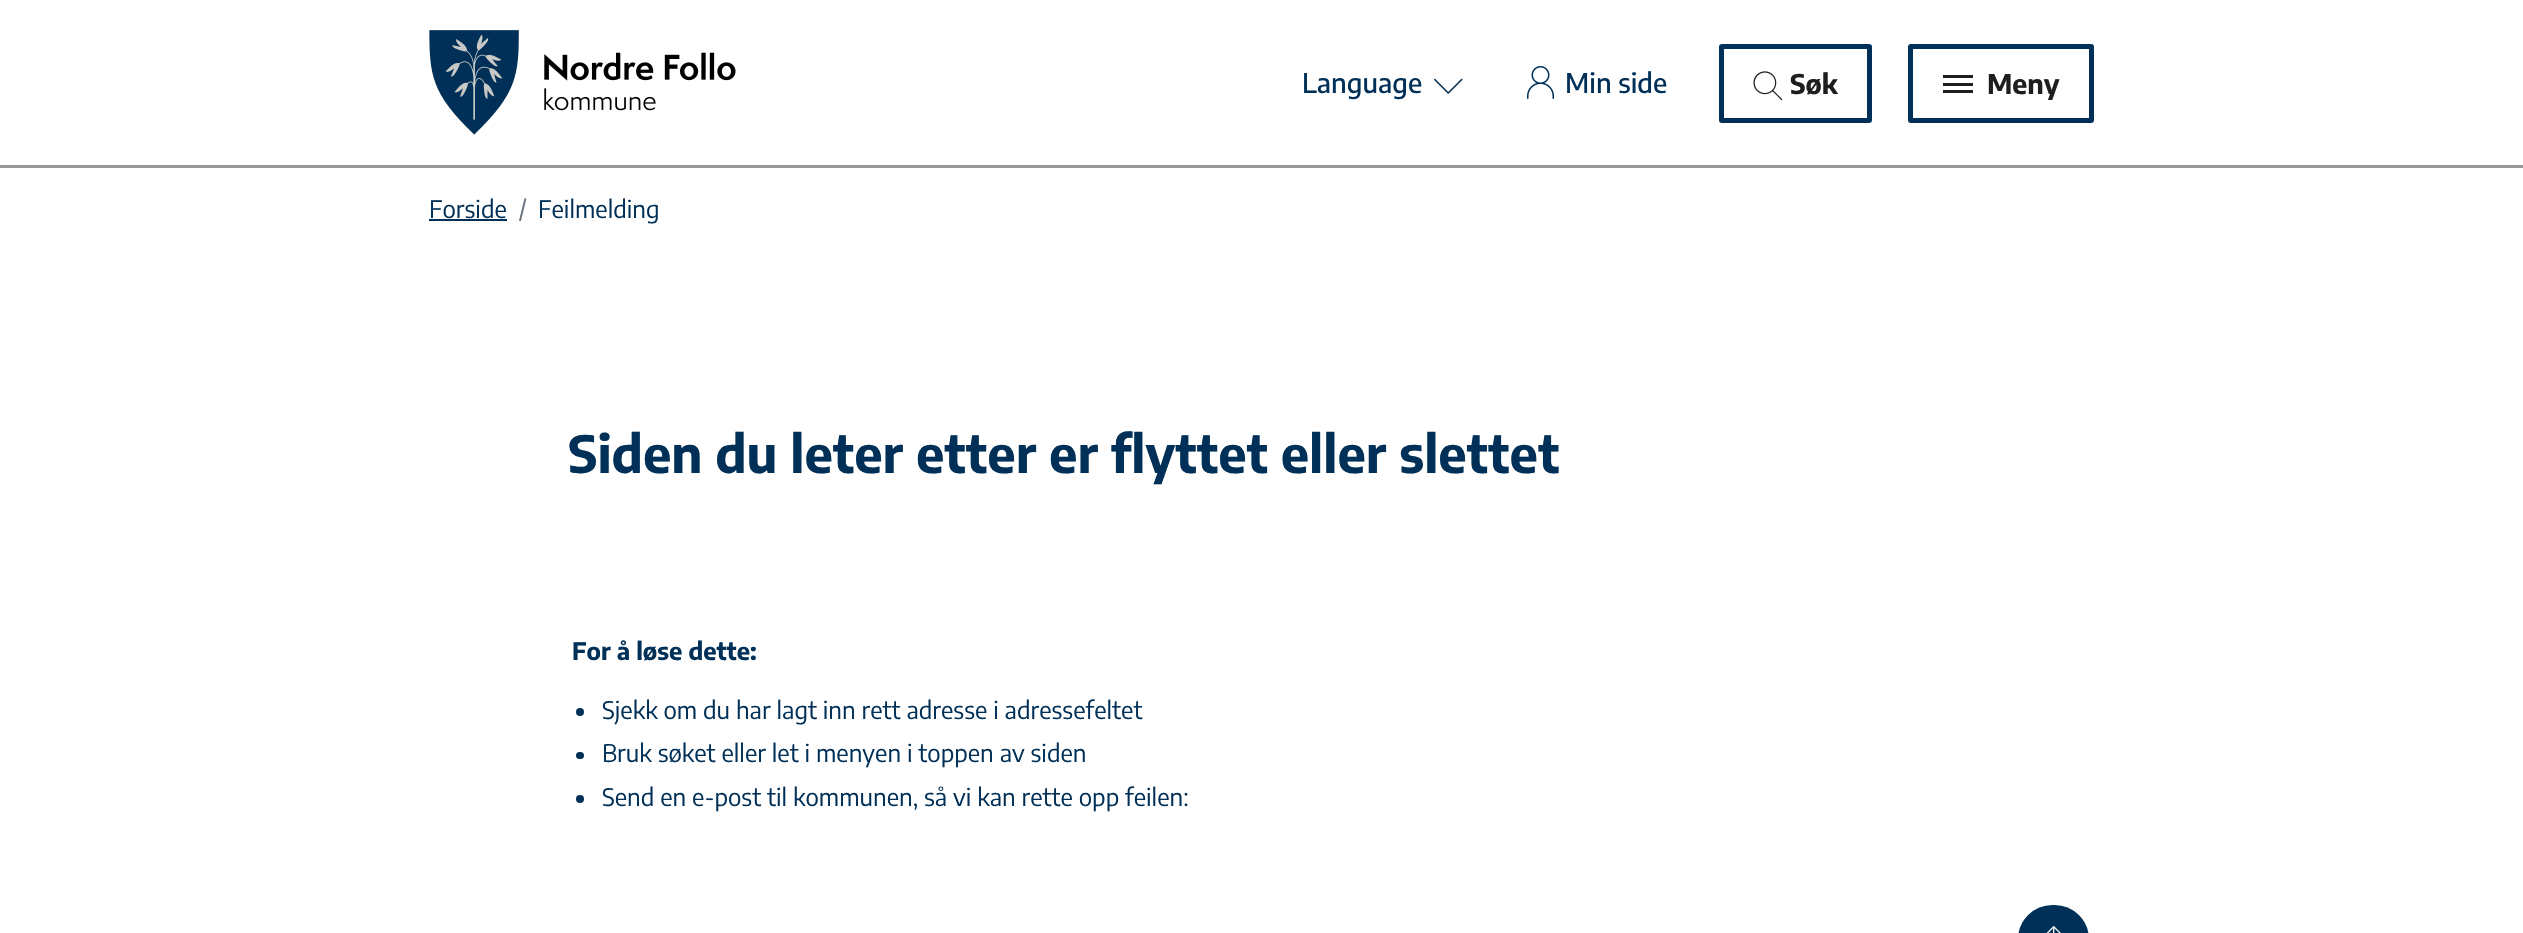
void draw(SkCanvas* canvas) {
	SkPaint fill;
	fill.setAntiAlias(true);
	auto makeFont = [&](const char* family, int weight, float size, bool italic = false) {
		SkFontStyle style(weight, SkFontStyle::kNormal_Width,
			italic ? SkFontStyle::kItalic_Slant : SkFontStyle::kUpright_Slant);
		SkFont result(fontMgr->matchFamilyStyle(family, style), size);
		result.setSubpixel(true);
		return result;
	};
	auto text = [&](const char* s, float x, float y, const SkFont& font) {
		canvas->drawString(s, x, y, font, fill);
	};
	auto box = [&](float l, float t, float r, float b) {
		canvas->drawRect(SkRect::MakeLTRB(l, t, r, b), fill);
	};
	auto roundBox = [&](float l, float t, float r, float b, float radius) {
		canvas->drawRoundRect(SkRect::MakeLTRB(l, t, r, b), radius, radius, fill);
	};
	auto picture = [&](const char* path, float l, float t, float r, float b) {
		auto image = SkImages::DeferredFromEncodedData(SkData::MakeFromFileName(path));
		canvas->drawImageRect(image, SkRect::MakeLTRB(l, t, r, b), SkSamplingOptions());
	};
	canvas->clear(0xFFFFFFFF);
	fill.setColor(0xFF979797);
	box(0, 165, 2523, 168);
	picture("image0.png", 429, 30, 736, 135);
	picture("image1.png", 1434, 78, 1463, 94);
	picture("image2.png", 1527, 66, 1554, 99);
	fill.setStyle(SkPaint::kStroke_Style);
	fill.setStrokeWidth(5);
	fill.setColor(0xFF003057);
	canvas->drawRoundRect(SkRect::MakeLTRB(1721.5f, 46.5f, 1869.5f, 120.5f), 0.5f, 0.5f, fill);
	picture("image3.png", 1753, 71, 1783, 101);
	canvas->drawRoundRect(SkRect::MakeLTRB(1910.5f, 46.5f, 2091.5f, 120.5f), 0.5f, 0.5f, fill);
	fill.setStyle(SkPaint::kFill_Style);
	fill.setColor(0xFF1E1E1E);
	box(1943, 75, 1973, 78);
	box(1943, 83, 1973, 86);
	box(1943, 90, 1973, 93);
	fill.setColor(0xFF003057);
	box(429, 219, 507, 221);
	canvas->drawCircle(580, 712, 4, fill);
	roundBox(576, 752, 584, 759, 3.5f);
	canvas->drawCircle(580, 799, 4, fill);
	canvas->drawRoundRect(SkRect::MakeLTRB(2015.5f, 902.5f, 2091.5f, 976.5f), 38, 38, fill);
	fill.setStyle(SkPaint::kStroke_Style);
	fill.setColor(0xFFFFFFFF);
	canvas->drawRoundRect(SkRect::MakeLTRB(2015.5f, 902.5f, 2091.5f, 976.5f), 38, 38, fill);
	picture("image4.png", 2046, 926, 2061, 933);
	auto font1 = makeFont("Encode Sans Condensed", 500, 27);
	fill.setStyle(SkPaint::kFill_Style);
	fill.setColor(0xFF003057);
	text("Language", 1302, 93, font1);
	text("Min side", 1565, 93, font1);
	auto font2 = makeFont("Encode Sans Condensed", 700, 27);
	fill.setColor(0xFF1E1E1E);
	text("Søk", 1790, 94, font2);
	text("Meny", 1987, 94, font2);
	auto font3 = makeFont("Encode Sans Condensed", 400, 24);
	fill.setColor(0xFF003057);
	text("Forside", 429, 218, font3);
	fill.setColor(0xFF6C757D);
	text("/", 519, 218, font3);
	fill.setColor(0xFF003057);
	text("Feilmelding", 538, 218, font3);
	auto font4 = makeFont("Encode Sans Condensed", 700, 51);
	text("Siden du leter etter er flyttet eller slettet", 568, 473, font4);
	auto font5 = makeFont("Encode Sans Condensed", 700, 24);
	text("For å løse dette:", 572, 660, font5);
	text("Sjekk om du har lagt inn rett adresse i adressefeltet", 602, 719, font3);
	text("Bruk søket eller let i menyen i toppen av siden", 602, 762, font3);
	text("Send en e-post til kommunen, så vi kan rette opp feilen:", 602, 806, font3);
}
